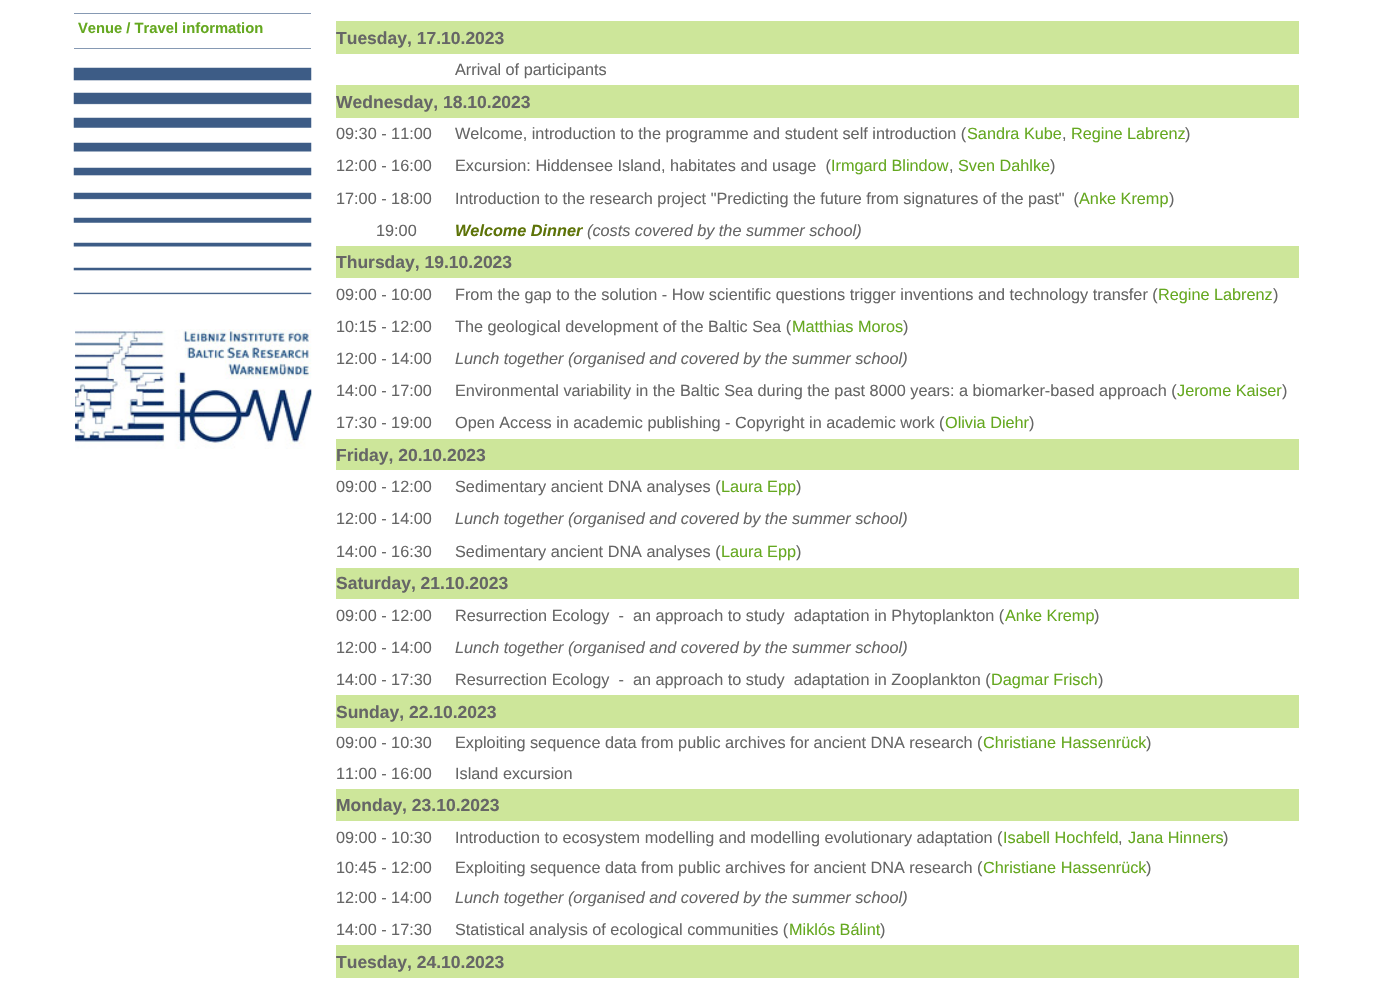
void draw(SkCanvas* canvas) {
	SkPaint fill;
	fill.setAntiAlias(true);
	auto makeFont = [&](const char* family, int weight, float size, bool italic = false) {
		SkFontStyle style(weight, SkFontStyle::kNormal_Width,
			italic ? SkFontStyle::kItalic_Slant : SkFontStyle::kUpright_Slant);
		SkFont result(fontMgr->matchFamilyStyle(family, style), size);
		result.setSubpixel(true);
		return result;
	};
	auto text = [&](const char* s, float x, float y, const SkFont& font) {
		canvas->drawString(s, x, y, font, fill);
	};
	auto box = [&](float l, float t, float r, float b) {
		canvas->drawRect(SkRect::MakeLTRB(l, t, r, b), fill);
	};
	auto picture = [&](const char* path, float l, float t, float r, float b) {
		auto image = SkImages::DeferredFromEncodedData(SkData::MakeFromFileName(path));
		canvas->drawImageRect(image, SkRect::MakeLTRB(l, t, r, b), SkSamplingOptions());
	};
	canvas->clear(0xFFFFFFFF);
	fill.setColor(0xFF8699B3);
	box(74, 48, 311, 49);
	box(74, 13, 311, 14);
	picture("image0.png", 73, 67, 312, 295);
	picture("image1.png", 75, 329, 312, 449);
	fill.setColor(0xFFCDE69A);
	box(336, 21, 1299, 54);
	box(336, 85, 1299, 118);
	box(336, 246, 1299, 278);
	box(336, 439, 1299, 470);
	box(336, 568, 1299, 599);
	box(336, 695, 1299, 728);
	box(336, 789, 1299, 821);
	box(336, 945, 1299, 978);
	auto font1 = makeFont("Liberation Sans", 700, 14.75f);
	fill.setColor(0xFF65A820);
	text("Venue / Travel information", 78, 33, font1);
	auto font2 = makeFont("Liberation Sans", 700, 17.5f);
	fill.setColor(0xFF666666);
	text("Tuesday, 17.10.2023", 336, 44, font2);
	auto font3 = makeFont("Liberation Sans", 400, 16.25f);
	text("Arrival of participants", 455, 75, font3);
	text("Wednesday, 18.10.2023", 336, 108, font2);
	text("09:30 - 11:00", 336, 139, font3);
	text("Welcome, introduction to the programme and student self introduction (", 455, 139, font3);
	fill.setColor(0xFF65A820);
	text("Sandra Kube", 967, 139, font3);
	fill.setColor(0xFF666666);
	text(",", 1062, 139, font3);
	fill.setColor(0xFF65A820);
	text("Regine Labrenz", 1071, 139, font3);
	fill.setColor(0xFF666666);
	text(")", 1185, 139, font3);
	text("12:00 - 16:00", 336, 171, font3);
	text("Excursion: Hiddensee Island, habitates and usage  (", 455, 171, font3);
	fill.setColor(0xFF65A820);
	text("Irmgard Blindow", 831, 171, font3);
	fill.setColor(0xFF666666);
	text(",", 949, 171, font3);
	fill.setColor(0xFF65A820);
	text("Sven Dahlke", 958, 171, font3);
	fill.setColor(0xFF666666);
	text(")", 1050, 171, font3);
	text("17:00 - 18:00", 336, 204, font3);
	text("Introduction to the research project \"Predicting the future from signatures of the past\"  (", 455, 204, font3);
	fill.setColor(0xFF65A820);
	text("Anke Kremp", 1079, 204, font3);
	fill.setColor(0xFF666666);
	text(")", 1169, 204, font3);
	text("19:00", 376, 236, font3);
	auto font4 = makeFont("Liberation Sans", 700, 16.25f, true);
	fill.setColor(0xFF5D7308);
	text("Welcome Dinner", 455, 236, font4);
	auto font5 = makeFont("Liberation Sans", 400, 16.25f, true);
	fill.setColor(0xFF666666);
	text("(costs covered by the summer school)", 587, 236, font5);
	text("Thursday, 19.10.2023", 336, 268, font2);
	text("09:00 - 10:00", 336, 300, font3);
	text("From the gap to the solution - How scientific questions trigger inventions and technology transfer (", 455, 300, font3);
	fill.setColor(0xFF65A820);
	text("Regine Labrenz", 1158, 300, font3);
	fill.setColor(0xFF666666);
	text(")", 1273, 300, font3);
	text("10:15 - 12:00", 336, 332, font3);
	text("The geological development of the Baltic Sea (", 455, 332, font3);
	fill.setColor(0xFF65A820);
	text("Matthias Moros", 792, 332, font3);
	fill.setColor(0xFF666666);
	text(")", 903, 332, font3);
	text("12:00 - 14:00", 336, 364, font3);
	text("Lunch together (organised and covered by the summer school)", 455, 364, font5);
	text("14:00 - 17:00", 336, 396, font3);
	text("Environmental variability in the Baltic Sea during the past 8000 years: a biomarker-based approach (", 455, 396, font3);
	fill.setColor(0xFF65A820);
	text("Jerome Kaiser", 1177, 396, font3);
	fill.setColor(0xFF666666);
	text(")", 1282, 396, font3);
	text("17:30 - 19:00", 336, 428, font3);
	text("Open Access in academic publishing - Copyright in academic work (", 455, 428, font3);
	fill.setColor(0xFF65A820);
	text("Olivia Diehr", 945, 428, font3);
	fill.setColor(0xFF666666);
	text(")", 1029, 428, font3);
	text("Friday, 20.10.2023", 336, 461, font2);
	text("09:00 - 12:00", 336, 492, font3);
	text("Sedimentary ancient DNA analyses (", 455, 492, font3);
	fill.setColor(0xFF65A820);
	text("Laura Epp", 721, 492, font3);
	fill.setColor(0xFF666666);
	text(")", 796, 492, font3);
	text("12:00 - 14:00", 336, 524, font3);
	text("Lunch together (organised and covered by the summer school)", 455, 524, font5);
	text("14:00 - 16:30", 336, 557, font3);
	text("Sedimentary ancient DNA analyses (", 455, 557, font3);
	fill.setColor(0xFF65A820);
	text("Laura Epp", 721, 557, font3);
	fill.setColor(0xFF666666);
	text(")", 796, 557, font3);
	text("Saturday, 21.10.2023", 336, 589, font2);
	text("09:00 - 12:00", 336, 621, font3);
	text("Resurrection Ecology  -  an approach to study  adaptation in Phytoplankton (", 455, 621, font3);
	fill.setColor(0xFF65A820);
	text("Anke Kremp", 1005, 621, font3);
	fill.setColor(0xFF666666);
	text(")", 1094, 621, font3);
	text("12:00 - 14:00", 336, 653, font3);
	text("Lunch together (organised and covered by the summer school)", 455, 653, font5);
	text("14:00 - 17:30", 336, 685, font3);
	text("Resurrection Ecology  -  an approach to study  adaptation in Zooplankton (", 455, 685, font3);
	fill.setColor(0xFF65A820);
	text("Dagmar Frisch", 991, 685, font3);
	fill.setColor(0xFF666666);
	text(")", 1098, 685, font3);
	text("Sunday, 22.10.2023", 336, 718, font2);
	text("09:00 - 10:30", 336, 748, font3);
	text("Exploiting sequence data from public archives for ancient DNA research (", 455, 748, font3);
	fill.setColor(0xFF65A820);
	text("Christiane Hassenrück", 983, 748, font3);
	fill.setColor(0xFF666666);
	text(")", 1146, 748, font3);
	text("11:00 - 16:00", 336, 779, font3);
	text("Island excursion", 455, 779, font3);
	text("Monday, 23.10.2023", 336, 811, font2);
	text("09:00 - 10:30", 336, 843, font3);
	text("Introduction to ecosystem modelling and modelling evolutionary adaptation (", 455, 843, font3);
	fill.setColor(0xFF65A820);
	text("Isabell Hochfeld", 1003, 843, font3);
	fill.setColor(0xFF666666);
	text(",", 1118, 843, font3);
	fill.setColor(0xFF65A820);
	text("Jana Hinners", 1128, 843, font3);
	fill.setColor(0xFF666666);
	text(")", 1223, 843, font3);
	text("10:45 - 12:00", 336, 873, font3);
	text("Exploiting sequence data from public archives for ancient DNA research (", 455, 873, font3);
	fill.setColor(0xFF65A820);
	text("Christiane Hassenrück", 983, 873, font3);
	fill.setColor(0xFF666666);
	text(")", 1146, 873, font3);
	text("12:00 - 14:00", 336, 903, font3);
	text("Lunch together (organised and covered by the summer school)", 455, 903, font5);
	text("14:00 - 17:30", 336, 935, font3);
	text("Statistical analysis of ecological communities (", 455, 935, font3);
	fill.setColor(0xFF65A820);
	text("Miklós Bálint", 789, 935, font3);
	fill.setColor(0xFF666666);
	text(")", 880, 935, font3);
	text("Tuesday, 24.10.2023", 336, 968, font2);
}
